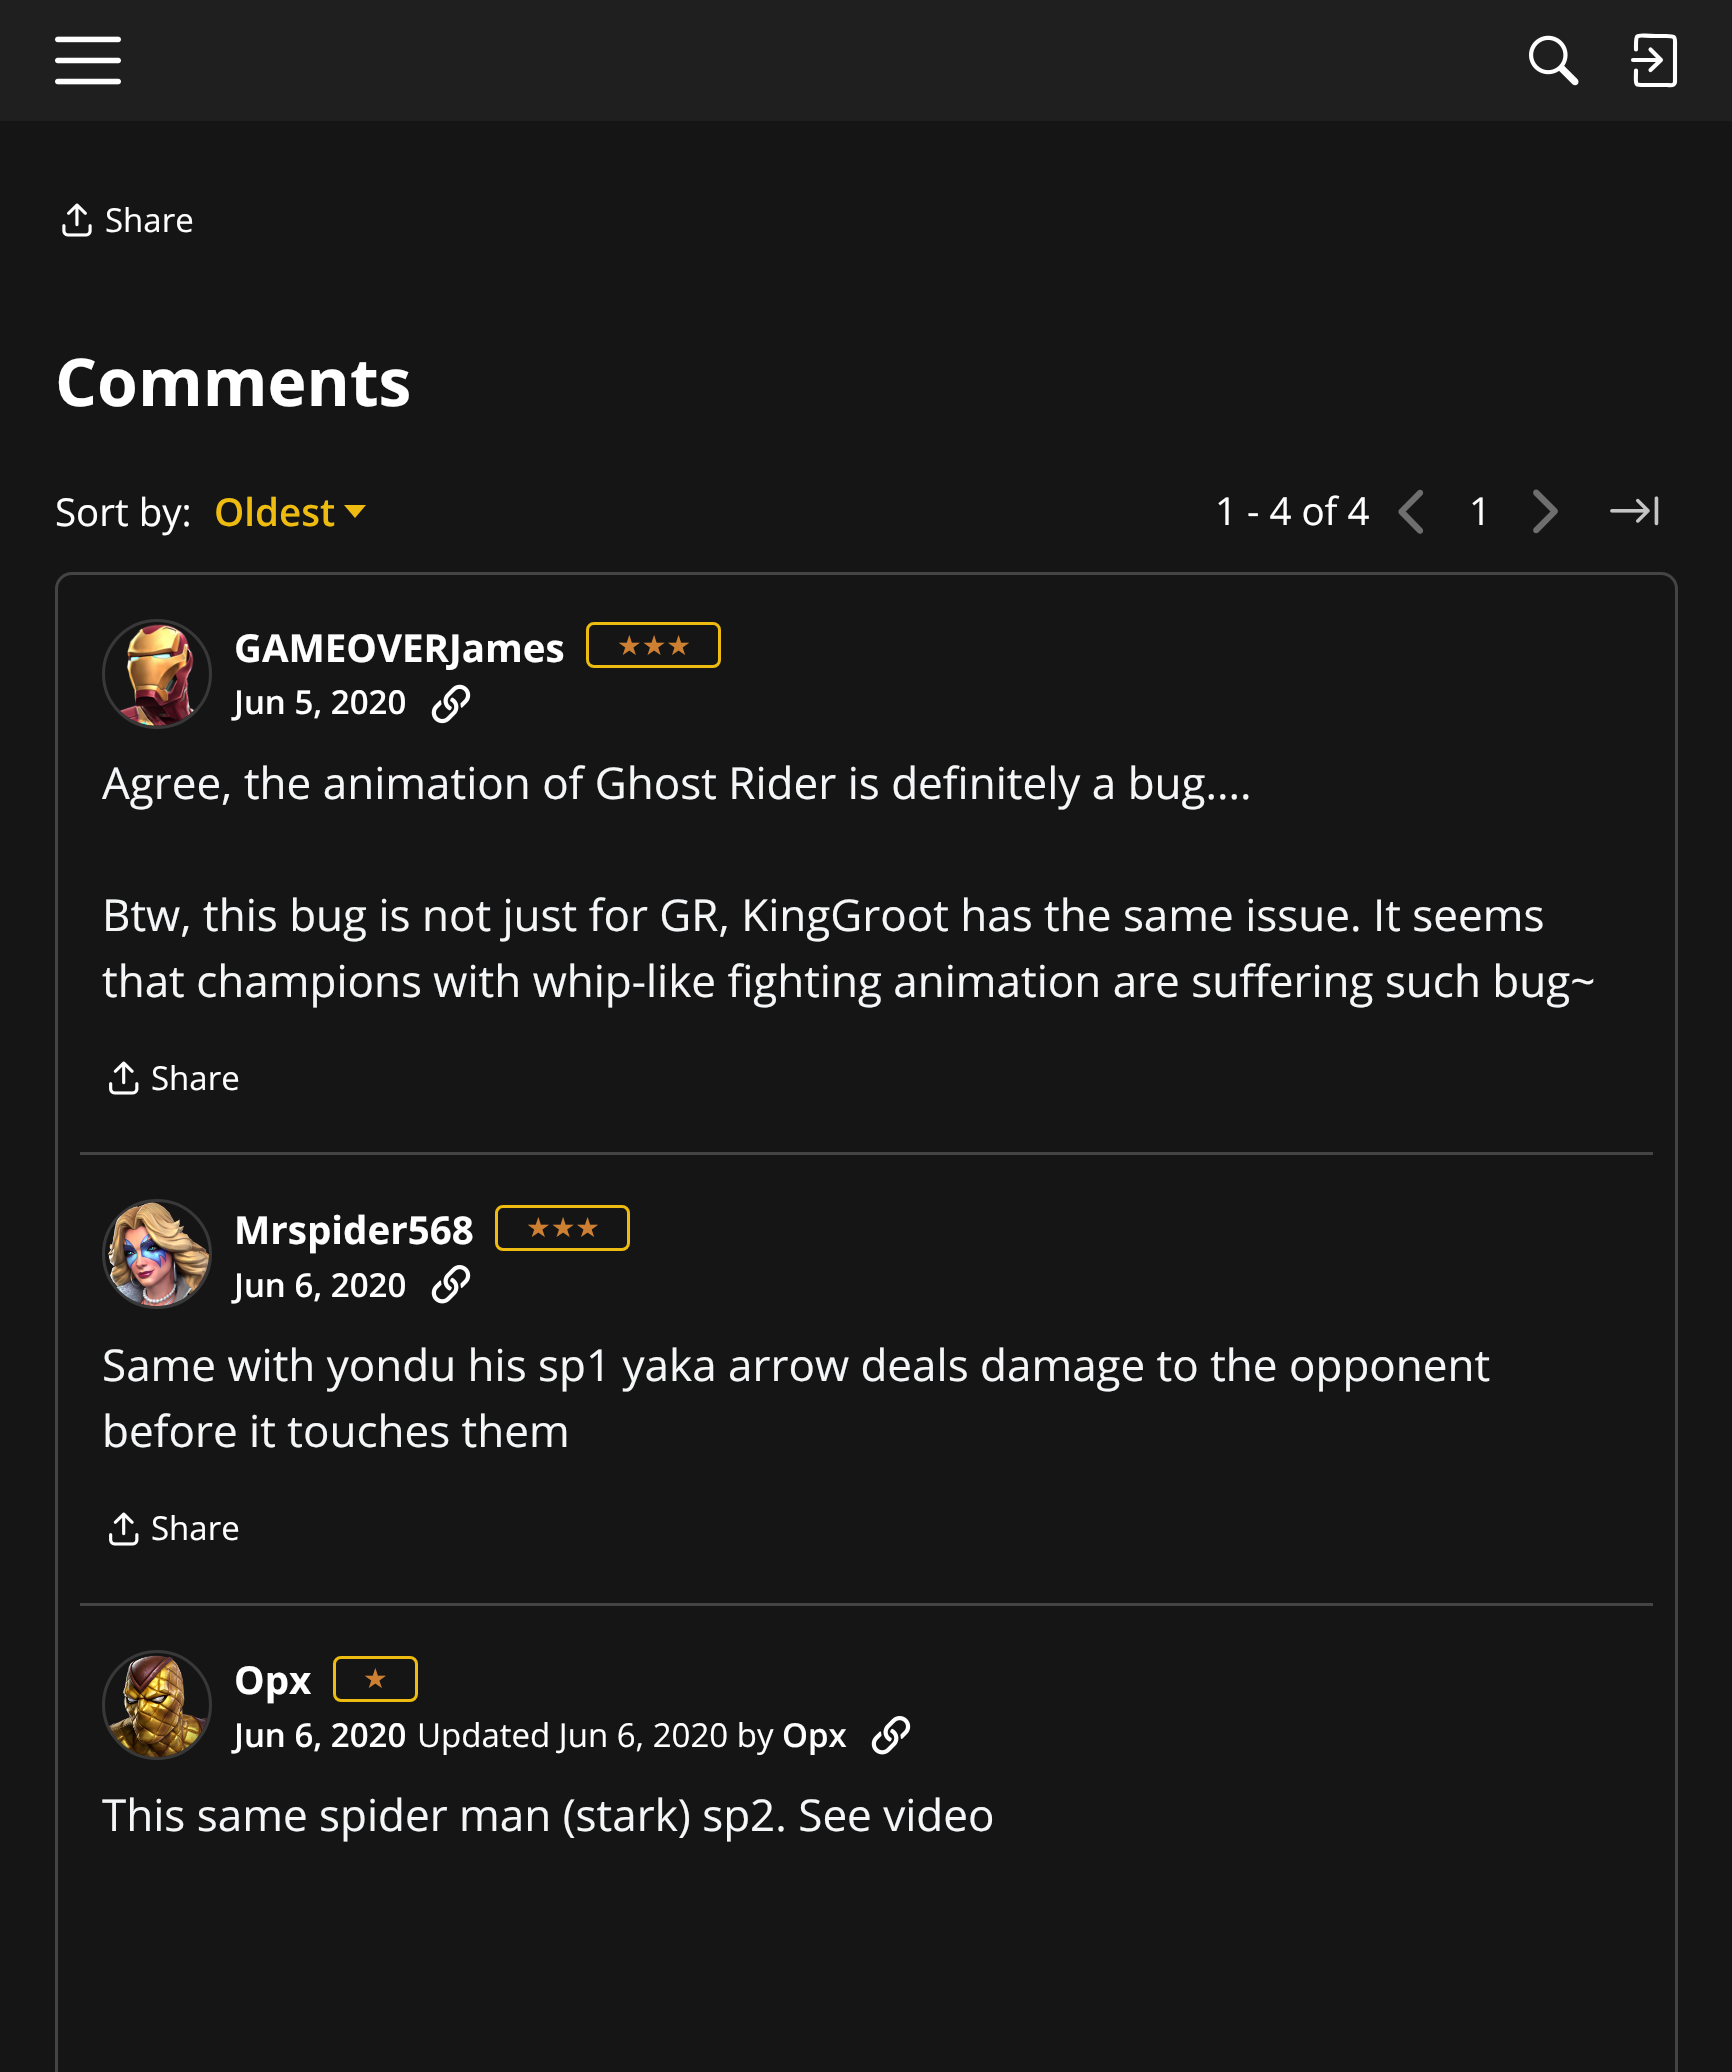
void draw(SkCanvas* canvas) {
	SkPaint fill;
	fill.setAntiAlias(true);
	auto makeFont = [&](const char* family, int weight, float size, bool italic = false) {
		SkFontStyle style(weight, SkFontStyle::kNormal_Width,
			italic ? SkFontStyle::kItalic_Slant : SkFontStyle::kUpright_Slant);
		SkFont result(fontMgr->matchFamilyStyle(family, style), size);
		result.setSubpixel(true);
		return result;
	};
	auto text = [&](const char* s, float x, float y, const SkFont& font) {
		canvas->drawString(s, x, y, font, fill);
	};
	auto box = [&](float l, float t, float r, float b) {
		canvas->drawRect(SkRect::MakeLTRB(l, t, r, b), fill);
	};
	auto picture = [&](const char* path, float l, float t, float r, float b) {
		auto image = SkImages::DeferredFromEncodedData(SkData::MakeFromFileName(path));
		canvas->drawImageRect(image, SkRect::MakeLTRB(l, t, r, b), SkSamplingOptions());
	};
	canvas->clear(0xFF151515);
	fill.setColor(0xFF1F1F1F);
	box(0, 0, 1732, 121);
	picture("image0.png", 55, 36, 121, 85);
	picture("image1.png", 1529, 35, 1579, 86);
	fill.setStyle(SkPaint::kStroke_Style);
	fill.setStrokeWidth(4.1f);
	fill.setStrokeCap(SkPaint::kRound_Cap);
	fill.setStrokeJoin(SkPaint::kRound_Join);
	fill.setColor(0xFFFFFFFF);
	canvas->drawPath(SkPathBuilder().moveTo(1650.5f, 70).lineTo(1661, 60).lineTo(1650.5f, 49.5f).detach(), fill);
	fill.setStrokeJoin(SkPaint::kMiter_Join);
	canvas->drawPath(SkPathBuilder().moveTo(1660, 60).lineTo(1633, 60).detach(), fill);
	fill.setStrokeJoin(SkPaint::kRound_Join);
	canvas->drawPath(SkPathBuilder().moveTo(1636, 49.5f).cubicTo(1636, 31.5f, 1634.5f, 36, 1655.5f, 36).lineTo(1666, 36).cubicTo(1676.5f, 36, 1675, 37, 1675, 47.5f).lineTo(1675, 82).cubicTo(1674.5f, 86.5f, 1670, 85, 1667, 85).lineTo(1650.5f, 85).cubicTo(1633, 85, 1636, 87, 1636, 70.5f).detach(), fill);
	picture("image2.png", 62, 203, 92, 237);
	fill.setStyle(SkPaint::kFill_Style);
	fill.setColor(0xFFEEBC11);
	canvas->drawPath(SkPathBuilder().moveTo(344, 505).lineTo(366, 505).lineTo(355, 518).close().detach(), fill);
	picture("image3.png", 1398, 489, 1424, 534);
	picture("image4.png", 1533, 489, 1558, 534);
	picture("image5.png", 1610, 496, 1659, 526);
	fill.setStyle(SkPaint::kStroke_Style);
	fill.setStrokeWidth(3);
	fill.setStrokeCap(SkPaint::kButt_Cap);
	fill.setStrokeJoin(SkPaint::kMiter_Join);
	fill.setColor(0xFF444444);
	canvas->drawRoundRect(SkRect::MakeLTRB(56.5f, 573.5f, 1676.5f, 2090.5f), 15.5f, 15.5f, fill);
	fill.setColor(0xFF383838);
	canvas->drawCircle(157, 674, 53.5f, fill);
	picture("image6.png", 120, 624, 194, 726);
	fill.setColor(0xFFEEBC11);
	canvas->drawRoundRect(SkRect::MakeLTRB(587.5f, 623.5f, 719.5f, 666.5f), 6.5f, 6.5f, fill);
	picture("image7.png", 431, 684, 471, 724);
	picture("image8.png", 109, 1061, 139, 1095);
	fill.setStyle(SkPaint::kFill_Style);
	fill.setColor(0xFF444444);
	box(80, 1152, 1653, 1155);
	fill.setStyle(SkPaint::kStroke_Style);
	fill.setColor(0xFF383838);
	canvas->drawCircle(157, 1254, 53.5f, fill);
	picture("image9.png", 108, 1202, 209, 1306);
	fill.setColor(0xFFEEBC11);
	canvas->drawRoundRect(SkRect::MakeLTRB(496.5f, 1206.5f, 628.5f, 1249.5f), 6.5f, 6.5f, fill);
	picture("image10.png", 431, 1265, 471, 1304);
	picture("image8.png", 109, 1512, 139, 1546);
	fill.setStyle(SkPaint::kFill_Style);
	fill.setColor(0xFF444444);
	box(80, 1603, 1653, 1606);
	fill.setStyle(SkPaint::kStroke_Style);
	fill.setColor(0xFF383838);
	canvas->drawCircle(157, 1705, 53.5f, fill);
	picture("image11.png", 109, 1655, 207, 1757);
	fill.setColor(0xFFEEBC11);
	canvas->drawRoundRect(SkRect::MakeLTRB(334.5f, 1657.5f, 416.5f, 1700.5f), 6.5f, 6.5f, fill);
	picture("image10.png", 871, 1716, 911, 1755);
	auto font1 = makeFont("Open Sans", 400, 33);
	fill.setStyle(SkPaint::kFill_Style);
	fill.setColor(0xFFFFFFFF);
	text("Share", 105, 232, font1);
	auto font2 = makeFont("Open Sans", 700, 66);
	text("Comments", 55, 406, font2);
	auto font3 = makeFont("Open Sans", 400, 38.5f);
	text("Sort by:", 55, 526, font3);
	auto font4 = makeFont("Open Sans", 600, 38.5f);
	fill.setColor(0xFFEEBC11);
	text("Oldest", 214, 526, font4);
	fill.setColor(0xFFFFFFFF);
	text("1 - 4 of 4", 1215, 525, font3);
	text("1", 1469, 525, font3);
	auto font5 = makeFont("Open Sans", 700, 38.5f);
	text("GAMEOVERJames", 234, 662, font5);
	auto font6 = makeFont("DejaVu Sans", 400, 27.5f);
	fill.setColor(0xFFCD7F32);
	text("★★★", 617, 655, font6);
	auto font7 = makeFont("Open Sans", 600, 33);
	fill.setColor(0xFFFFFFFF);
	text("Jun 5, 2020", 234, 714, font7);
	auto font8 = makeFont("Open Sans", 400, 44);
	fill.setColor(0xFFF5F6F7);
	text("Agree, the animation of Ghost Rider is definitely a bug....", 102, 799, font8);
	text("Btw, this bug is not just for GR, KingGroot has the same issue. It seems", 102, 931, font8);
	text("that champions with whip-like fighting animation are suffering such bug~", 102, 997, font8);
	fill.setColor(0xFFFFFFFF);
	text("Share", 151, 1090, font1);
	text("Mrspider568", 234, 1244, font5);
	fill.setColor(0xFFCD7F32);
	text("★★★", 526, 1237, font6);
	fill.setColor(0xFFFFFFFF);
	text("Jun 6, 2020", 234, 1297, font7);
	fill.setColor(0xFFF5F6F7);
	text("Same with yondu his sp1 yaka arrow deals damage to the opponent", 102, 1381, font8);
	text("before it touches them", 102, 1447, font8);
	fill.setColor(0xFFFFFFFF);
	text("Share", 151, 1540, font1);
	text("Opx", 234, 1694, font5);
	fill.setColor(0xFFCD7F32);
	text("★", 363, 1688, font6);
	fill.setColor(0xFFFFFFFF);
	text("Jun 6, 2020", 234, 1747, font7);
	text("Updated Jun 6, 2020 by", 417, 1747, font1);
	text("Opx", 782, 1747, font7);
	fill.setColor(0xFFF5F6F7);
	text("This same spider man (stark) sp2. See video", 102, 1831, font8);
}
